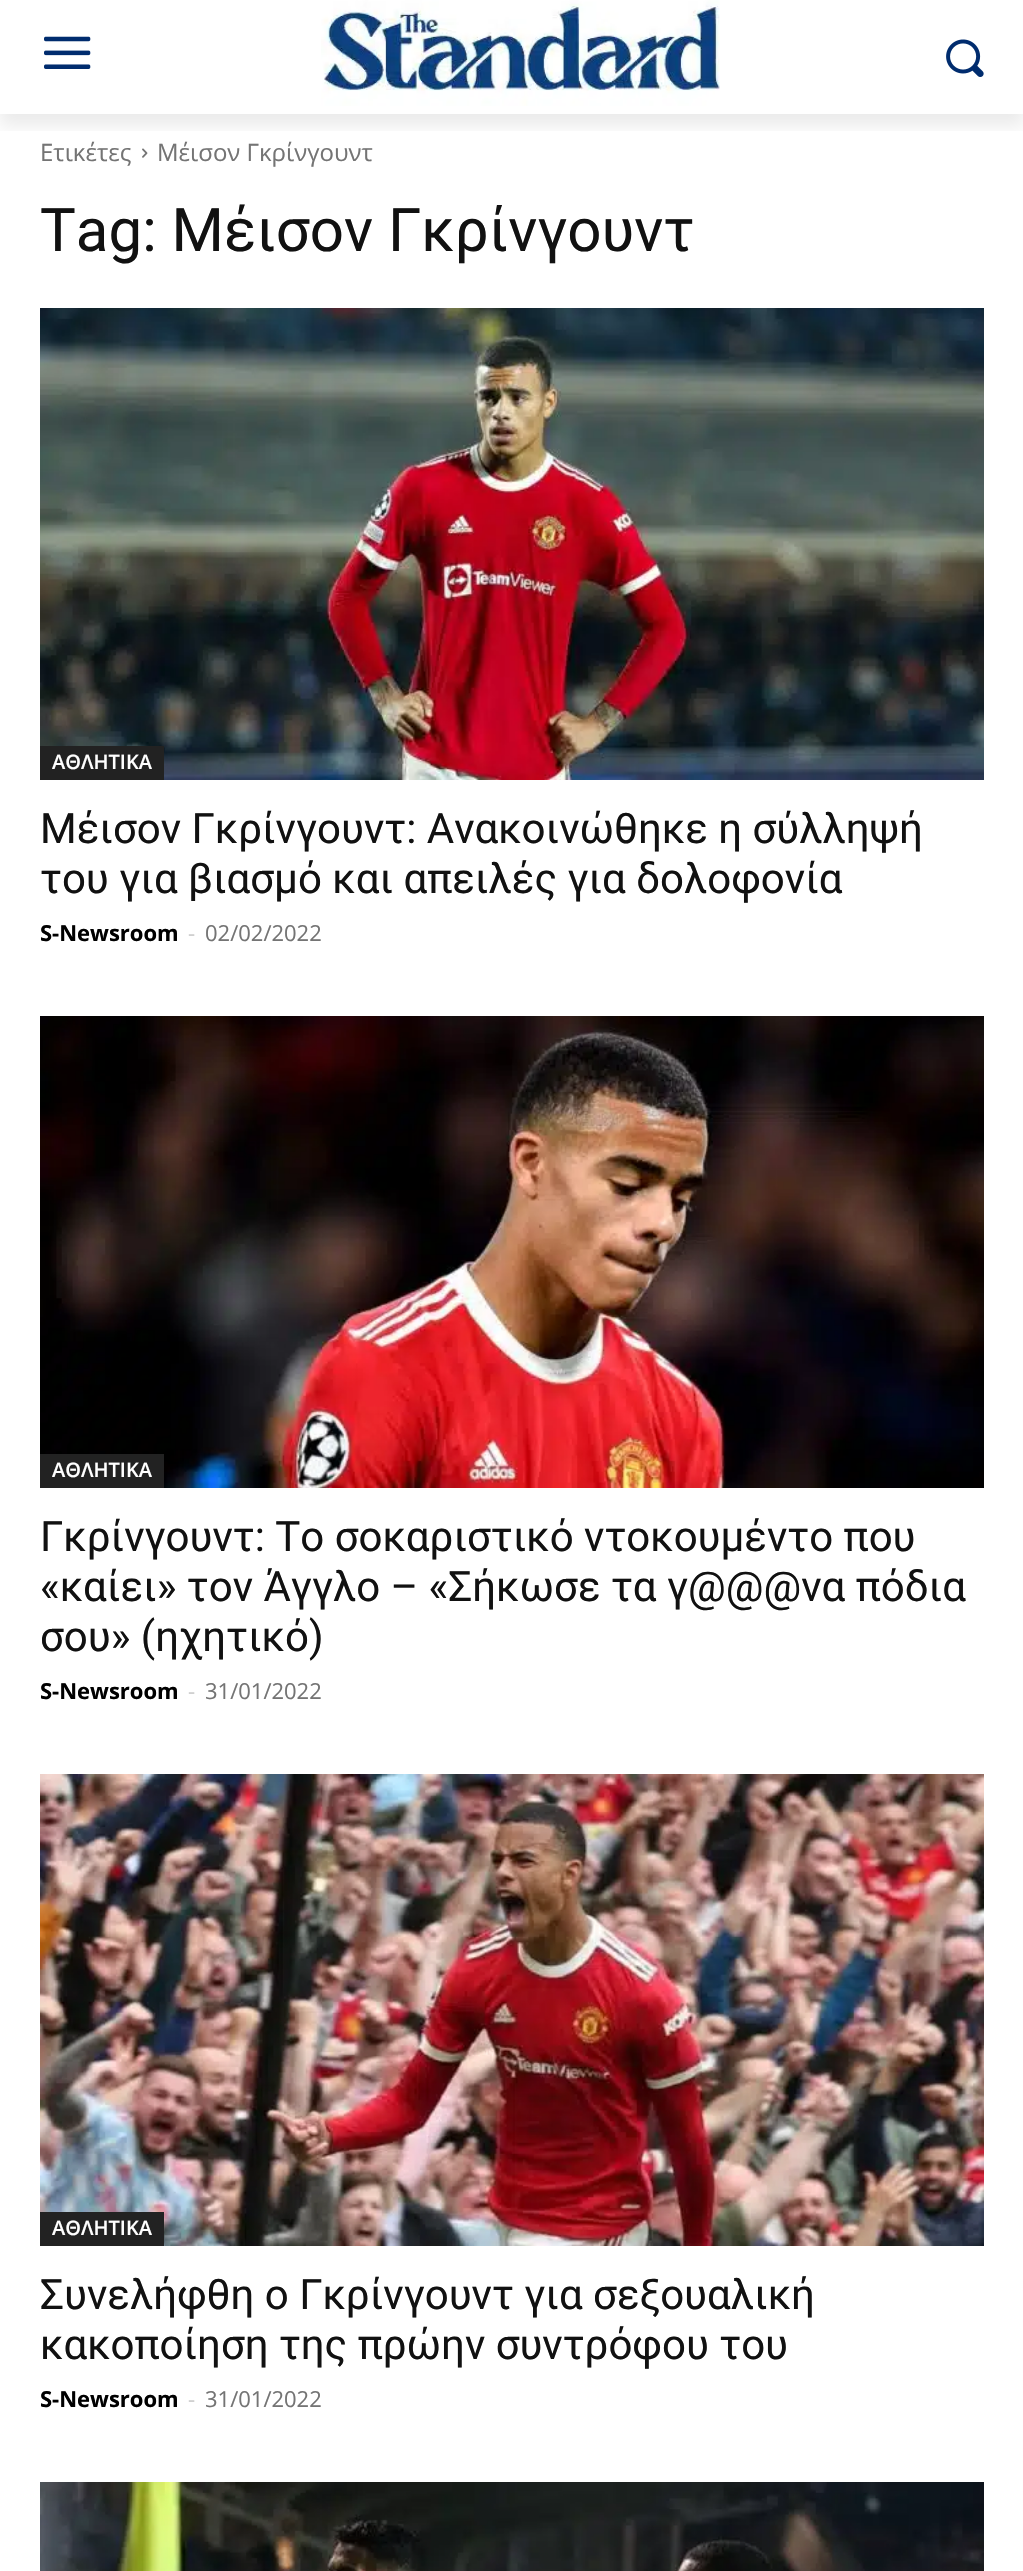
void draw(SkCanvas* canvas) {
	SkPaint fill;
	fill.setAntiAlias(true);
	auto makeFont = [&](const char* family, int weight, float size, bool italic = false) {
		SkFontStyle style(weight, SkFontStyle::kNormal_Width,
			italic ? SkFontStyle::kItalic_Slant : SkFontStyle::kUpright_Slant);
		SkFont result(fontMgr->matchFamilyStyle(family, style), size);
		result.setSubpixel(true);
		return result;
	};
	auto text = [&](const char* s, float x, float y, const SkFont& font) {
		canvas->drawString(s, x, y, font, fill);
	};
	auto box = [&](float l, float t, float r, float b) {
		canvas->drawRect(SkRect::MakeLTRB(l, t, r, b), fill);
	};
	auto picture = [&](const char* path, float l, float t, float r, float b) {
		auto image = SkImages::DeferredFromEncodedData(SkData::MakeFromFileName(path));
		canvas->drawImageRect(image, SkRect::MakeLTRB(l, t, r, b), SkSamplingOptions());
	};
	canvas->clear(0xFFFFFFFF);
	picture("image0.png", 44, 36, 91, 69);
	picture("image1.png", 321, 0, 720, 106);
	picture("image2.png", 946, 39, 984, 77);
	picture("image3.png", 142, 148, 148, 158);
	canvas->save();
	canvas->clipRect(SkRect::MakeLTRB(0, 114, 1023, 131));
	fill.setColor(0x14000000);
	fill.setMaskFilter(SkMaskFilter::MakeBlur(kNormal_SkBlurStyle, 8));
	canvas->drawRect(SkRect::MakeLTRB(0, 12, 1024, 126), fill);
	fill.setMaskFilter(nullptr);
	canvas->restore();
	picture("image4.png", 40, 308, 984, 780);
	fill.setColor(0xFF222222);
	box(40, 746, 164, 780);
	picture("image5.png", 40, 1016, 984, 1488);
	box(40, 1454, 164, 1488);
	picture("image6.png", 40, 1774, 984, 2246);
	box(40, 2212, 164, 2246);
	picture("image7.png", 40, 2482, 984, 2571);
	auto font1 = makeFont("Open Sans", 400, 24);
	fill.setColor(0xFF747474);
	text("Ετικέτες", 40, 161, font1);
	text("Μέισον Γκρίνγουντ", 157, 161, font1);
	auto font2 = makeFont("Roboto", 400, 60);
	fill.setColor(0xFF111111);
	text("Tag: Μέισον Γκρίνγουντ", 40, 251, font2);
	auto font3 = makeFont("Open Sans", 600, 20);
	fill.setColor(0xFFFFFFFF);
	text("ΑΘΛΗΤΙΚΑ", 52, 769, font3);
	auto font4 = makeFont("Roboto", 400, 42);
	fill.setColor(0xFF111111);
	text("Μέισον Γκρίνγουντ: Ανακοινώθηκε η σύλληψή", 40, 843, font4);
	text("του για βιασμό και απειλές για δολοφονία", 40, 893, font4);
	auto font5 = makeFont("Open Sans", 700, 22);
	fill.setColor(0xFF000000);
	text("S-Newsroom", 40, 941, font5);
	auto font6 = makeFont("Open Sans", 400, 22);
	fill.setColor(0xFFCCCCCC);
	text("-", 188, 941, font6);
	fill.setColor(0xFF747474);
	text("02/02/2022", 205, 941, font6);
	fill.setColor(0xFFFFFFFF);
	text("ΑΘΛΗΤΙΚΑ", 52, 1477, font3);
	fill.setColor(0xFF111111);
	text("Γκρίνγουντ: To σοκαριστικό ντοκουμέντο που", 40, 1551, font4);
	text("«καίει» τον Άγγλο – «Σήκωσε τα γ@@@να πόδια", 40, 1601, font4);
	text("σου» (ηχητικό)", 40, 1651, font4);
	fill.setColor(0xFF000000);
	text("S-Newsroom", 40, 1699, font5);
	fill.setColor(0xFFCCCCCC);
	text("-", 188, 1699, font6);
	fill.setColor(0xFF747474);
	text("31/01/2022", 205, 1699, font6);
	fill.setColor(0xFFFFFFFF);
	text("ΑΘΛΗΤΙΚΑ", 52, 2235, font3);
	fill.setColor(0xFF111111);
	text("Συνελήφθη ο Γκρίνγουντ για σεξουαλική", 40, 2309, font4);
	text("κακοποίηση της πρώην συντρόφου του", 40, 2359, font4);
	fill.setColor(0xFF000000);
	text("S-Newsroom", 40, 2407, font5);
	fill.setColor(0xFFCCCCCC);
	text("-", 188, 2407, font6);
	fill.setColor(0xFF747474);
	text("31/01/2022", 205, 2407, font6);
}
